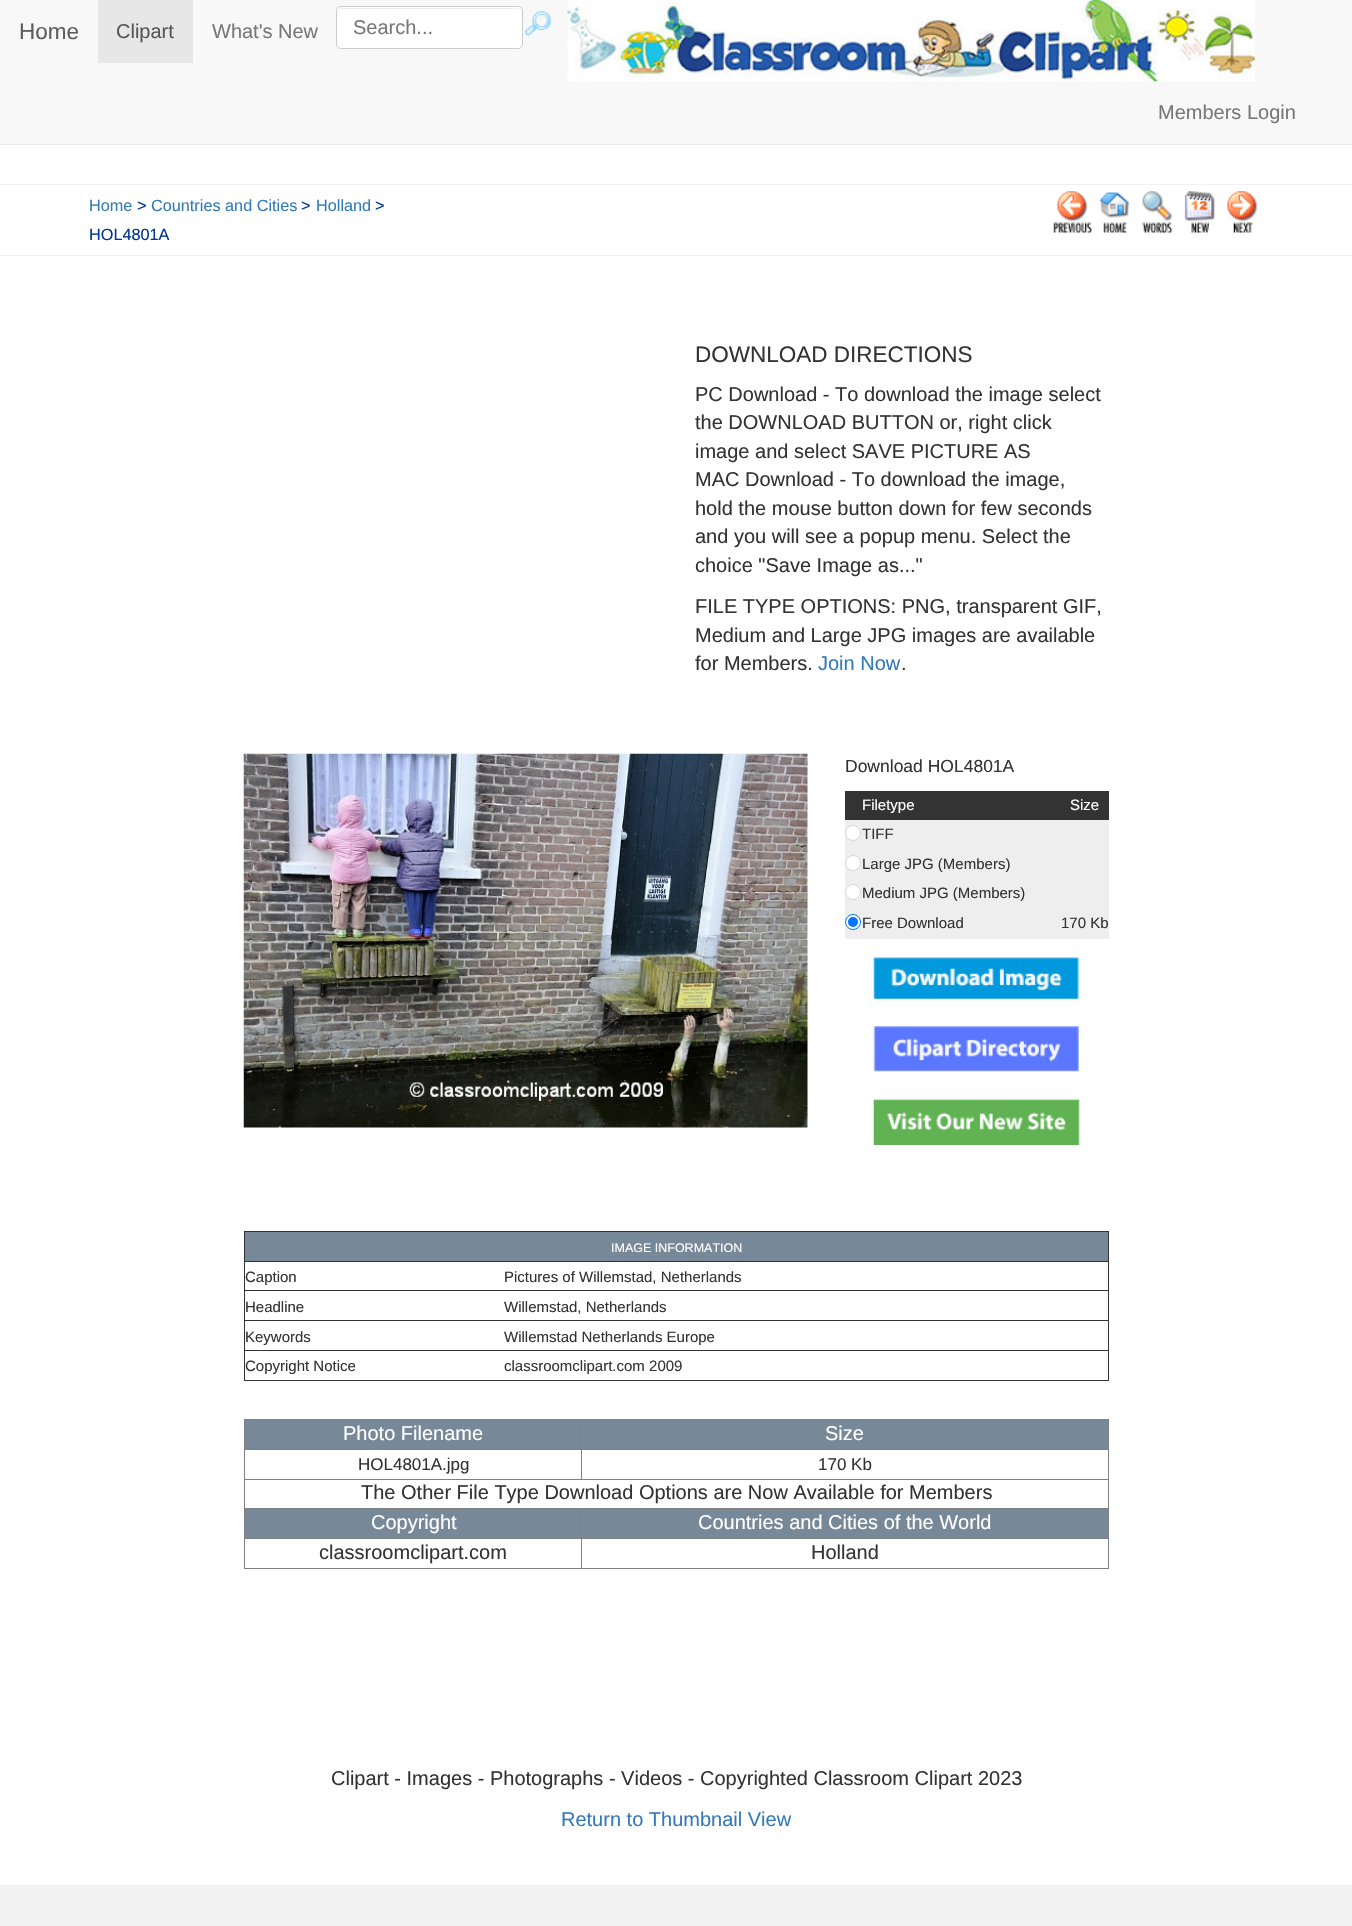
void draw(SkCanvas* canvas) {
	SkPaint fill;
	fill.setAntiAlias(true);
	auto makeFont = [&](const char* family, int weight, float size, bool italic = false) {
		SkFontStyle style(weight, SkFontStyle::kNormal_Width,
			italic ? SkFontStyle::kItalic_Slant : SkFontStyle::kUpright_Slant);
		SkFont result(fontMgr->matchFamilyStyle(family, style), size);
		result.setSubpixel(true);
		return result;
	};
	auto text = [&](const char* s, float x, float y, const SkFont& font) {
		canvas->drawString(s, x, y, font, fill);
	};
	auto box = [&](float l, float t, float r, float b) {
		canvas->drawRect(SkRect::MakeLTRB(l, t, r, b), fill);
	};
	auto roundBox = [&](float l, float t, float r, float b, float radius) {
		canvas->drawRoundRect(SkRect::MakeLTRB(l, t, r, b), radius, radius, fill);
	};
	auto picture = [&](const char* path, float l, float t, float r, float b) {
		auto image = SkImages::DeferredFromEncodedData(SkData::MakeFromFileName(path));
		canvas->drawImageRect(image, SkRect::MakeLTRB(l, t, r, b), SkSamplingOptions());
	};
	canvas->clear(0xFFFFFFFF);
	fill.setColor(0xFFF8F8F8);
	box(0, 0, 1352, 144);
	fill.setColor(0xFFE7E7E7);
	box(0, 144, 1352, 145);
	box(98, 0, 193, 63);
	fill.setColor(0xFFFFFFFF);
	roundBox(336, 6, 523, 49, 5);
	fill.setColor(0xFFECECEC);
	canvas->drawPath(SkPathBuilder().moveTo(341, 9).lineTo(518, 9).lineTo(520, 10).cubicTo(520, 9, 518, 8, 517, 8).lineTo(342, 8).cubicTo(341, 8, 339, 9, 339, 10).close().detach(), fill);
	fill.setStyle(SkPaint::kStroke_Style);
	fill.setStrokeWidth(1);
	fill.setColor(0xFFCCCCCC);
	canvas->drawRoundRect(SkRect::MakeLTRB(336.5f, 6.5f, 522.5f, 48.5f), 4.5f, 4.5f, fill);
	picture("image0.png", 524, 11, 552, 37);
	picture("image1.png", 567, 0, 1255, 82);
	fill.setStyle(SkPaint::kFill_Style);
	fill.setColor(0xFFF1F1F1);
	box(0, 184, 1352, 185);
	box(0, 255, 1352, 256);
	picture("image2.png", 1053, 191, 1092, 233);
	picture("image3.png", 1099, 192, 1130, 233);
	picture("image4.png", 1142, 191, 1173, 233);
	picture("image5.png", 1184, 191, 1215, 233);
	picture("image6.png", 1227, 191, 1258, 233);
	picture("image7.png", 243, 753, 808, 1128);
	fill.setColor(0xFF333333);
	box(845, 791, 1109, 820);
	fill.setColor(0xFFEEEEEE);
	box(845, 820, 1109, 939);
	fill.setColor(0xFFFFFFFF);
	canvas->drawCircle(853, 833, 8, fill);
	fill.setStyle(SkPaint::kStroke_Style);
	fill.setColor(0x4D767676);
	canvas->drawCircle(853, 833, 7.5f, fill);
	fill.setStyle(SkPaint::kFill_Style);
	fill.setColor(0xFFFFFFFF);
	canvas->drawCircle(853, 863, 8, fill);
	fill.setStyle(SkPaint::kStroke_Style);
	fill.setColor(0x4D767676);
	canvas->drawCircle(853, 863, 7.5f, fill);
	fill.setStyle(SkPaint::kFill_Style);
	fill.setColor(0xFFFFFFFF);
	canvas->drawCircle(853, 892, 8, fill);
	fill.setStyle(SkPaint::kStroke_Style);
	fill.setColor(0x4D767676);
	canvas->drawCircle(853, 892, 7.5f, fill);
	fill.setStyle(SkPaint::kFill_Style);
	fill.setColor(0xFFFFFFFF);
	canvas->drawCircle(853, 922, 7.5f, fill);
	fill.setStyle(SkPaint::kStroke_Style);
	fill.setColor(0xFF0075FF);
	canvas->drawCircle(853, 922, 7.5f, fill);
	fill.setStyle(SkPaint::kFill_Style);
	canvas->drawCircle(853, 922, 5, fill);
	picture("image8.png", 873, 957, 1079, 999);
	picture("image9.png", 873, 1026, 1079, 1072);
	picture("image10.png", 873, 1098, 1080, 1145);
	fill.setColor(0xFF333333);
	box(244, 1231, 1109, 1232);
	box(1108, 1231, 1109, 1381);
	box(244, 1380, 1109, 1381);
	box(244, 1231, 245, 1381);
	fill.setColor(0xFF778899);
	box(245, 1232, 1108, 1261);
	fill.setColor(0xFF333333);
	box(244, 1261, 1109, 1262);
	box(244, 1290, 1109, 1291);
	box(244, 1320, 1109, 1321);
	box(244, 1350, 1109, 1351);
	fill.setColor(0xFF808080);
	box(244, 1419, 1109, 1420);
	box(1108, 1419, 1109, 1569);
	box(244, 1568, 1109, 1569);
	box(244, 1419, 245, 1569);
	fill.setColor(0xFF778899);
	box(245, 1420, 1108, 1449);
	fill.setColor(0xFF808080);
	box(581, 1449, 1109, 1450);
	box(244, 1479, 1109, 1480);
	box(581, 1449, 582, 1480);
	box(244, 1449, 583, 1450);
	box(581, 1419, 582, 1450);
	fill.setColor(0xFF778899);
	box(245, 1509, 1108, 1538);
	fill.setColor(0xFF808080);
	box(581, 1508, 1109, 1509);
	box(581, 1538, 1109, 1539);
	box(581, 1538, 582, 1569);
	box(244, 1538, 583, 1539);
	box(581, 1508, 582, 1539);
	box(244, 1508, 583, 1509);
	fill.setColor(0xFFF2F2F2);
	box(0, 1885, 1352, 1926);
	auto font1 = makeFont("Liberation Sans", 400, 22.5f);
	fill.setColor(0xFF5E5E5E);
	text("Home", 19, 39, font1);
	auto font2 = makeFont("Liberation Sans", 400, 20);
	fill.setColor(0xFF555555);
	text("Clipart", 116, 38, font2);
	fill.setColor(0xFF777777);
	text("What's New", 212, 38, font2);
	text("Search...", 353, 34, font2);
	text("Members Login", 1158, 119, font2);
	auto font3 = makeFont("Liberation Sans", 400, 16.25f);
	fill.setColor(0xFF337AB7);
	text("Home", 89, 211, font3);
	fill.setColor(0xFF003399);
	text(">", 137, 211, font3);
	fill.setColor(0xFF337AB7);
	text("Countries and Cities", 151, 211, font3);
	fill.setColor(0xFF003399);
	text(">", 301, 211, font3);
	fill.setColor(0xFF337AB7);
	text("Holland", 316, 211, font3);
	fill.setColor(0xFF003399);
	text(">", 375, 211, font3);
	text("HOL4801A", 89, 240, font3);
	fill.setColor(0xFF333333);
	text("DOWNLOAD DIRECTIONS", 695, 362, font1);
	text("PC Download - To download the image select", 695, 401, font2);
	text("the DOWNLOAD BUTTON or, right click", 695, 429, font2);
	text("image and select SAVE PICTURE AS", 695, 458, font2);
	text("MAC Download - To download the image,", 695, 486, font2);
	text("hold the mouse button down for few seconds", 695, 515, font2);
	text("and you will see a popup menu. Select the", 695, 543, font2);
	text("choice \"Save Image as...\"", 695, 572, font2);
	text("FILE TYPE OPTIONS: PNG, transparent GIF,", 695, 613, font2);
	text("Medium and Large JPG images are available", 695, 642, font2);
	text("for Members.", 695, 670, font2);
	fill.setColor(0xFF337AB7);
	text("Join Now", 818, 670, font2);
	fill.setColor(0xFF333333);
	text(".", 901, 670, font2);
	auto font4 = makeFont("Liberation Sans", 400, 17.5f);
	text("Download HOL4801A", 845, 772, font4);
	auto font5 = makeFont("Liberation Sans", 400, 15);
	fill.setColor(0xFFFFFFFF);
	text("Filetype", 862, 810, font5);
	text("Size", 1070, 810, font5);
	fill.setColor(0xFF333333);
	text("TIFF", 862, 839, font5);
	text("Large JPG (Members)", 862, 869, font5);
	text("Medium JPG (Members)", 862, 898, font5);
	text("Free Download", 862, 928, font5);
	text("170 Kb", 1061, 928, font5);
	auto font6 = makeFont("Liberation Sans", 400, 12.5f);
	fill.setColor(0xFFFFFFFF);
	text("IMAGE INFORMATION", 611, 1252, font6);
	fill.setColor(0xFF333333);
	text("Caption", 245, 1282, font5);
	text("Pictures of Willemstad, Netherlands", 504, 1282, font5);
	text("Headline", 245, 1312, font5);
	text("Willemstad, Netherlands", 504, 1312, font5);
	text("Keywords", 245, 1342, font5);
	text("Willemstad Netherlands Europe", 504, 1342, font5);
	text("Copyright Notice", 245, 1371, font5);
	text("classroomclipart.com 2009", 504, 1371, font5);
	fill.setColor(0xFFFFFFFF);
	text("Photo Filename", 343, 1440, font2);
	text("Size", 825, 1440, font2);
	auto font7 = makeFont("Liberation Sans", 400, 17);
	fill.setColor(0xFF333333);
	text("HOL4801A.jpg", 358, 1470, font7);
	text("170 Kb", 818, 1470, font7);
	text("The Other File Type Download Options are Now Available for Members", 361, 1499, font2);
	fill.setColor(0xFFFFFFFF);
	text("Copyright", 371, 1529, font2);
	text("Countries and Cities of the World", 698, 1529, font2);
	fill.setColor(0xFF333333);
	text("classroomclipart.com", 319, 1559, font2);
	text("Holland", 811, 1559, font2);
	text("Clipart - Images - Photographs - Videos - Copyrighted Classroom Clipart 2023", 331, 1785, font2);
	fill.setColor(0xFF337AB7);
	text("Return to Thumbnail View", 561, 1826, font2);
}
